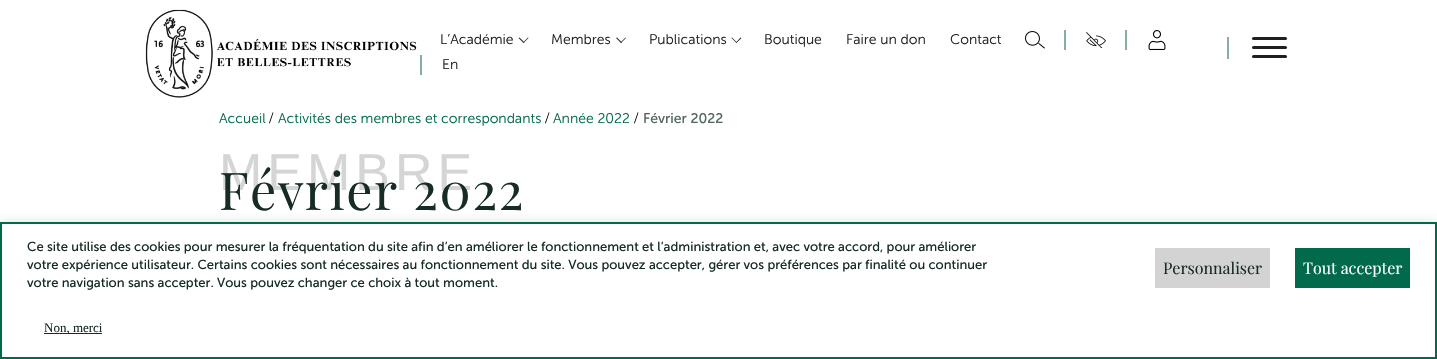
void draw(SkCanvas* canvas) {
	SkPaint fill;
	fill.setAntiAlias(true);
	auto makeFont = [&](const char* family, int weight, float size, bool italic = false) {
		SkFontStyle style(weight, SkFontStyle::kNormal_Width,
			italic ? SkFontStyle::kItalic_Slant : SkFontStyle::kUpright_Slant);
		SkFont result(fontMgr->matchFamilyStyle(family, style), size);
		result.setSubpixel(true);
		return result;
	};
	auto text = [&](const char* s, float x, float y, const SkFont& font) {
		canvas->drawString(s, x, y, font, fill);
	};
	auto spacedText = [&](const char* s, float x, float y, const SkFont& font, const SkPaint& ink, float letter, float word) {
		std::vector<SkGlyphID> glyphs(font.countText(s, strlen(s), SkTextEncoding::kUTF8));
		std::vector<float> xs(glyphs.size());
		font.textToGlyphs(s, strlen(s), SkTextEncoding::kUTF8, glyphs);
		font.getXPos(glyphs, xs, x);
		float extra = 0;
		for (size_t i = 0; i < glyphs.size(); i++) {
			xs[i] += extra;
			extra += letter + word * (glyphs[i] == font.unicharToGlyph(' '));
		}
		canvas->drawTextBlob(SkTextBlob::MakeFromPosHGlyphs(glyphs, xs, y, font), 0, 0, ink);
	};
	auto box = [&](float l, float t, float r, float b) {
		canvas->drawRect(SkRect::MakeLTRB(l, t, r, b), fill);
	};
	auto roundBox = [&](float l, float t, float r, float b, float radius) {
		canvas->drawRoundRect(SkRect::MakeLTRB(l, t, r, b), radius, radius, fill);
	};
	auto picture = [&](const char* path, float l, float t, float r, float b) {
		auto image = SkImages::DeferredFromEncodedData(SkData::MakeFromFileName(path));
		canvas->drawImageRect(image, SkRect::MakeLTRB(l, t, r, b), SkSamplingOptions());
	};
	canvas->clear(0xFFFFFFFF);
	picture("image0.png", 145, 9, 417, 98);
	fill.setColor(0xFF172C27);
	canvas->drawPath(SkPathBuilder().moveTo(528, 37.5f).lineTo(528.5f, 38).lineTo(523.5f, 43).lineTo(523, 42.5f).close().detach(), fill);
	canvas->drawPath(SkPathBuilder().moveTo(519.5f, 37.5f).lineTo(524.5f, 42.5f).lineTo(523.5f, 43).lineTo(518.5f, 38).close().detach(), fill);
	canvas->drawPath(SkPathBuilder().moveTo(625.5f, 37.5f).lineTo(626, 38).lineTo(621, 43).lineTo(620.5f, 42.5f).close().detach(), fill);
	canvas->drawPath(SkPathBuilder().moveTo(617, 37.5f).lineTo(622, 42.5f).lineTo(621, 43).lineTo(616, 38).close().detach(), fill);
	canvas->drawPath(SkPathBuilder().moveTo(740.5f, 37.5f).lineTo(741.5f, 38).lineTo(736.5f, 43).lineTo(736, 42.5f).close().detach(), fill);
	canvas->drawPath(SkPathBuilder().moveTo(732, 37.5f).lineTo(737, 42.5f).lineTo(736.5f, 43).lineTo(731.5f, 38).close().detach(), fill);
	picture("image1.png", 1025, 31, 1045, 49);
	fill.setColor(0xFF88AE9D);
	box(1064, 30, 1066, 50);
	picture("image2.png", 1086, 32, 1106, 48);
	box(1125, 30, 1127, 50);
	picture("image3.png", 1148, 30, 1166, 50);
	box(420, 55, 422, 75);
	box(1227, 37, 1229, 59);
	fill.setColor(0xFF1F2020);
	roundBox(1252, 37, 1287, 40, 1.5f);
	roundBox(1252, 46, 1287, 49, 1.5f);
	roundBox(1252, 55, 1287, 58, 1.5f);
	fill.setColor(0x4DACABAB);
	fill.setMaskFilter(SkMaskFilter::MakeBlur(kNormal_SkBlurStyle, 5));
	canvas->drawRect(SkRect::MakeLTRB(0, 221, 1437, 358), fill);
	fill.setMaskFilter(nullptr);
	fill.setColor(0xFFFFFFFF);
	canvas->drawRect(SkRect::MakeLTRB(1, 223, 1436, 358), fill);
	fill.setStyle(SkPaint::kStroke_Style);
	fill.setStrokeWidth(2);
	fill.setColor(0xFF016A4D);
	canvas->drawRect(SkRect::MakeLTRB(1, 223, 1436, 358), fill);
	fill.setStyle(SkPaint::kFill_Style);
	fill.setColor(0xFFD3D3D3);
	box(1155, 248, 1270, 288);
	fill.setColor(0xFF016A4D);
	box(1295, 248, 1410, 288);
	fill.setColor(0xFF172C27);
	box(44, 333, 102, 334);
	auto font1 = makeFont("Museo Sans", 300, 14);
	fill.setColor(0xFF1F2020);
	text("L’Académie", 440, 44, font1);
	text("Membres", 551, 44, font1);
	text("Publications", 649, 44, font1);
	text("Boutique", 764, 44, font1);
	text("Faire un don", 846, 44, font1);
	text("Contact", 950, 44, font1);
	text("En", 442, 69, font1);
	fill.setColor(0xFF016A4D);
	text("Accueil", 219, 123, font1);
	auto font2 = makeFont("Liberation Serif", 400, 16);
	fill.setColor(0xFF000000);
	text("/", 269, 123, font2);
	fill.setColor(0xFF016A4D);
	text("Activités des membres et correspondants", 278, 123, font1);
	fill.setColor(0xFF000000);
	text("/", 545, 123, font2);
	fill.setColor(0xFF016A4D);
	text("Année 2022", 553, 123, font1);
	fill.setColor(0xFF000000);
	text("/", 634, 123, font2);
	auto font3 = makeFont("Museo Sans", 400, 14);
	fill.setColor(0xFF536462);
	text("Février 2022", 643, 123, font3);
	auto font4 = makeFont("Liberation Sans", 400, 52);
	fill.setColor(0xFFD5D5D5);
	spacedText("MEMBRE", 219, 190, font4, fill, 5, 0);
	auto font5 = makeFont("Playfair Display", 400, 52);
	fill.setColor(0xFF172C27);
	spacedText("Février 2022", 219, 210, font5, fill, 1.5f, 0);
	auto font6 = makeFont("Museo Sans", 400, 13);
	text("Ce site utilise des cookies pour mesurer la fréquentation du site afin d’en améliorer le fonctionnement et l’administration et, avec votre accord, pour améliorer", 27, 251, font6);
	text("votre expérience utilisateur. Certains cookies sont nécessaires au fonctionnement du site. Vous pouvez accepter, gérer vos préférences par finalité ou continuer", 27, 269, font6);
	text("votre navigation sans accepter. Vous pouvez changer ce choix à tout moment.", 27, 287, font6);
	auto font7 = makeFont("Playfair Display", 400, 16);
	text("Personnaliser", 1163, 274, font7);
	fill.setColor(0xFFFFFFFF);
	text("Tout accepter", 1303, 274, font7);
	auto font8 = makeFont("Liberation Serif", 400, 13);
	fill.setColor(0xFF172C27);
	text("Non, merci", 44, 332, font8);
}
